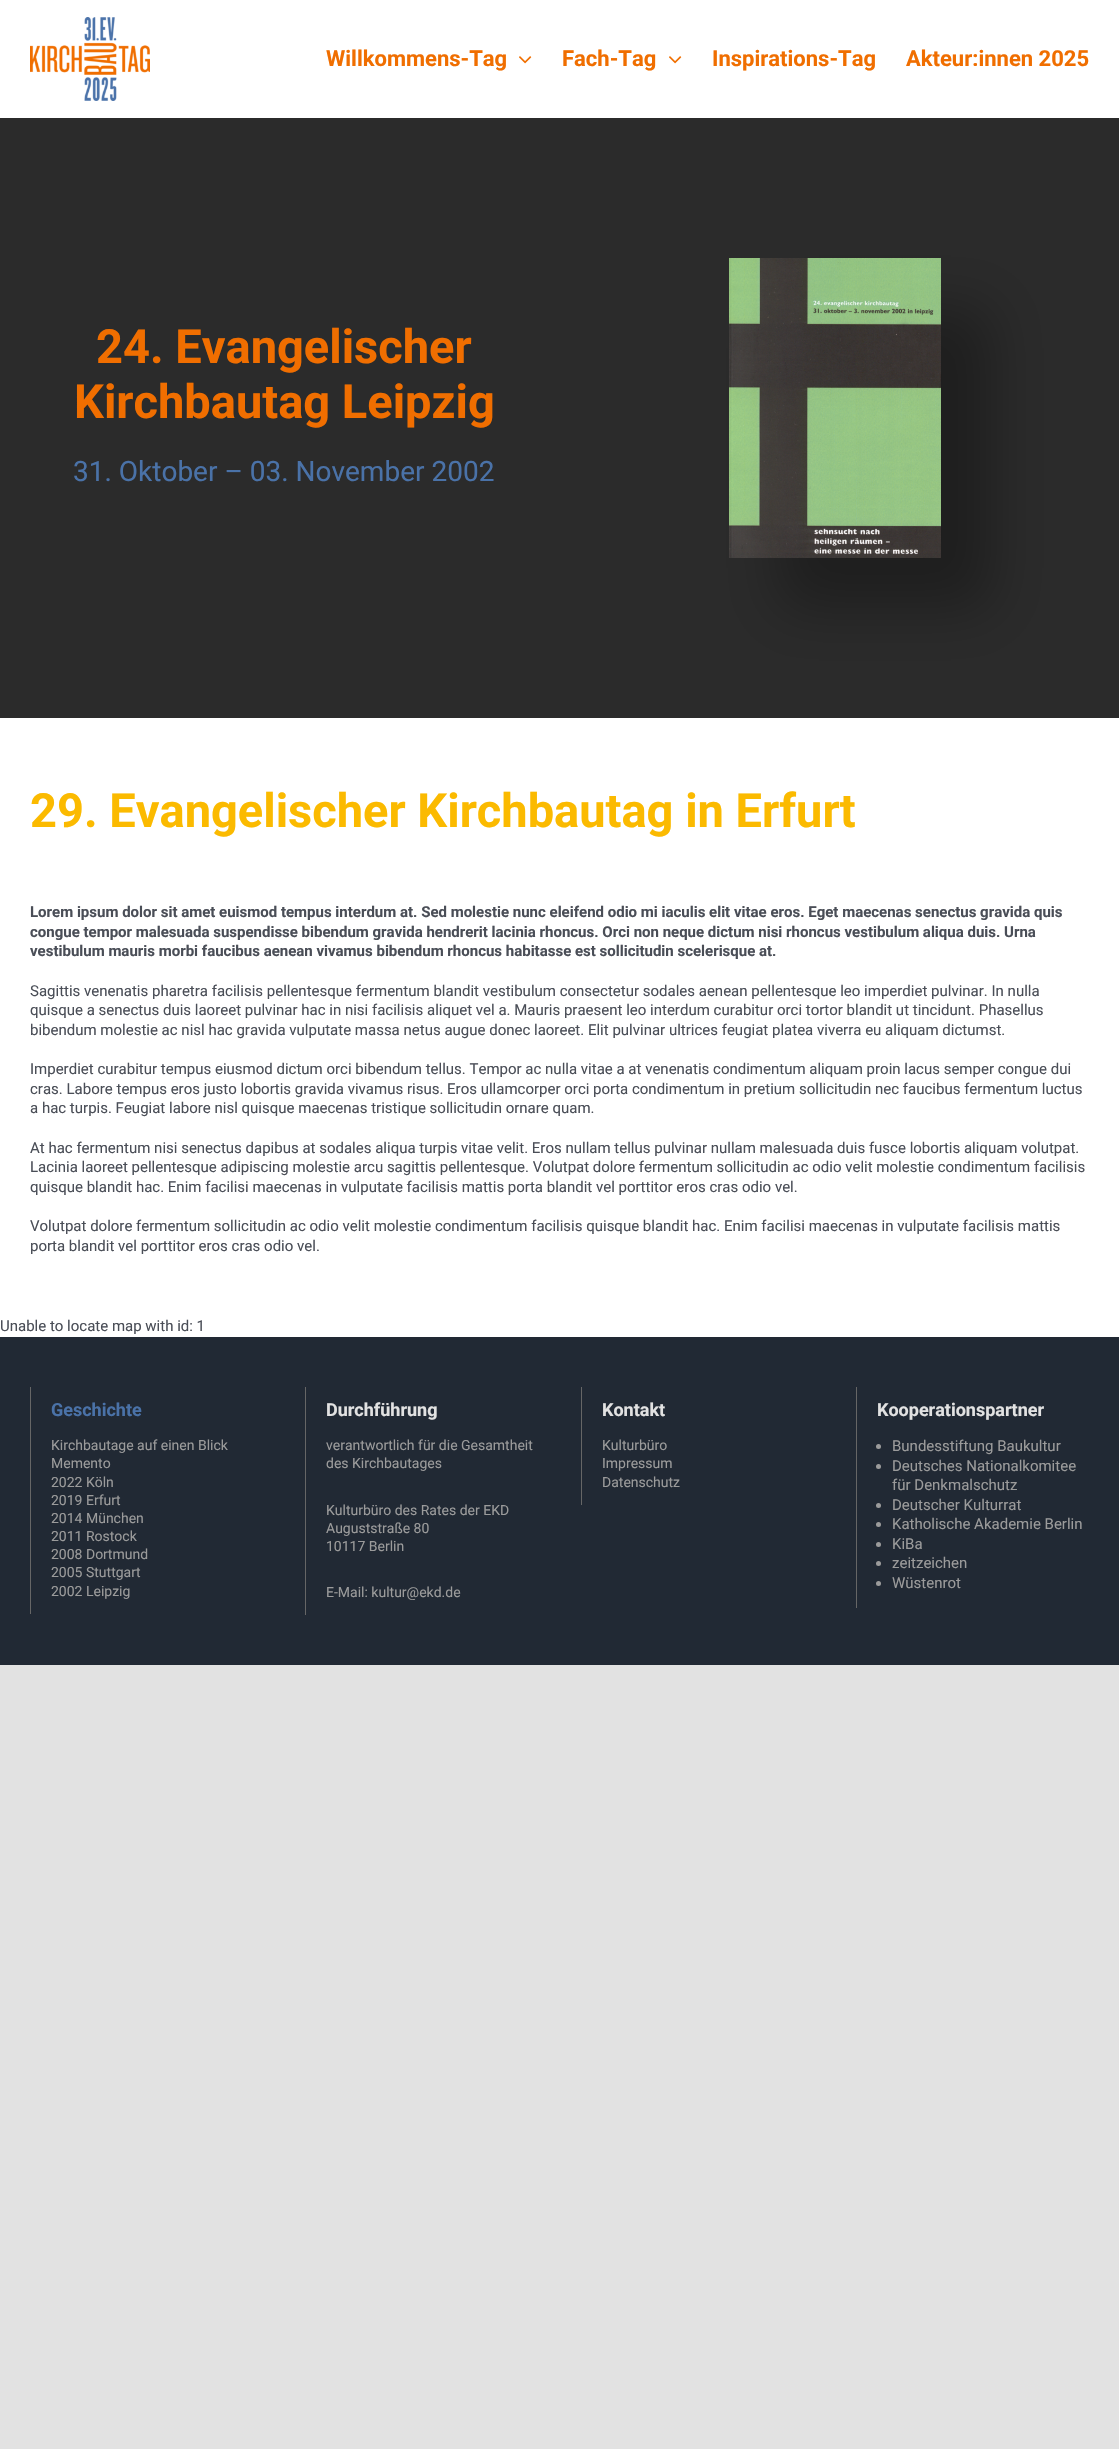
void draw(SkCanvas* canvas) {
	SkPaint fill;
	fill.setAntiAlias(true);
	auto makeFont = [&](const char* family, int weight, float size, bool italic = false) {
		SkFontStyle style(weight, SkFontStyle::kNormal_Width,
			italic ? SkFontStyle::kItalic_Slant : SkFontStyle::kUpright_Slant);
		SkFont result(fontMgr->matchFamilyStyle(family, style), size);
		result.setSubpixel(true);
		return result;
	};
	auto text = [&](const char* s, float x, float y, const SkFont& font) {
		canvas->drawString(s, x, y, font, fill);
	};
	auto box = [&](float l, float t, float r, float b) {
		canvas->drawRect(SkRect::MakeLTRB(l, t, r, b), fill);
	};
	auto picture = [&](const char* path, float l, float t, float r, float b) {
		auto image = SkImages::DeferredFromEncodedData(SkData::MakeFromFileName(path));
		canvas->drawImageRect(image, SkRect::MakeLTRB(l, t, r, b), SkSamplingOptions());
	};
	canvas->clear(0xFFE2E2E2);
	fill.setColor(0xFFFFFFFF);
	box(0, 0, 1119, 1337);
	picture("image0.png", 30, 17, 150, 101);
	picture("image1.png", 519, 56, 532, 64);
	picture("image1.png", 669, 56, 682, 64);
	fill.setColor(0xFF2B2B2B);
	box(0, 118, 1119, 718);
	fill.setColor(0x4D000000);
	fill.setMaskFilter(SkMaskFilter::MakeBlur(kNormal_SkBlurStyle, 27));
	canvas->drawRect(SkRect::MakeLTRB(779, 308, 991, 608), fill);
	fill.setMaskFilter(nullptr);
	picture("image2.png", 729, 258, 941, 558);
	fill.setColor(0xFF212934);
	box(0, 1337, 1119, 1665);
	fill.setColor(0xFF666666);
	box(30, 1387, 31, 1614);
	box(305, 1387, 306, 1615);
	box(581, 1387, 582, 1505);
	box(856, 1387, 857, 1608);
	fill.setColor(0xFF9B9B9B);
	canvas->drawCircle(878.5f, 1446.5f, 2.5f, fill);
	canvas->drawCircle(878.5f, 1466.5f, 2.5f, fill);
	canvas->drawCircle(878.5f, 1505.5f, 2.5f, fill);
	canvas->drawCircle(878.5f, 1524.5f, 2.5f, fill);
	canvas->drawCircle(878.5f, 1544.5f, 2.5f, fill);
	canvas->drawCircle(878.5f, 1563.5f, 2.5f, fill);
	canvas->drawCircle(878.5f, 1583.5f, 2.5f, fill);
	auto font1 = makeFont("Roboto", 700, 22);
	fill.setColor(0xFFF06E00);
	text("Willkommens-Tag", 326, 66, font1);
	text("Fach-Tag", 562, 66, font1);
	text("Inspirations-Tag", 712, 66, font1);
	text("Akteur:innen 2025", 906, 66, font1);
	auto font2 = makeFont("Roboto", 700, 47);
	text("24. Evangelischer", 96, 363, font2);
	text("Kirchbautag Leipzig", 74, 418, font2);
	auto font3 = makeFont("Roboto", 400, 28);
	fill.setColor(0xFF4A72A8);
	text("31. Oktober – 03. November 2002", 73, 481, font3);
	fill.setColor(0xFFFBBA00);
	text("29. Evangelischer Kirchbautag in Erfurt", 30, 827, font2);
	auto font4 = makeFont("Roboto", 700, 15);
	fill.setColor(0xFF4A4E57);
	text("Lorem ipsum dolor sit amet euismod tempus interdum at. Sed molestie nunc eleifend odio mi iaculis elit vitae eros. Eget maecenas senectus gravida quis", 30, 917, font4);
	text("congue tempor malesuada suspendisse bibendum gravida hendrerit lacinia rhoncus. Orci non neque dictum nisi rhoncus vestibulum aliqua duis. Urna", 30, 937, font4);
	text("vestibulum mauris morbi faucibus aenean vivamus bibendum rhoncus habitasse est sollicitudin scelerisque at.", 30, 956, font4);
	auto font5 = makeFont("Roboto", 400, 15);
	text("Sagittis venenatis pharetra facilisis pellentesque fermentum blandit vestibulum consectetur sodales aenean pellentesque leo imperdiet pulvinar. In nulla", 30, 996, font5);
	text("quisque a senectus duis laoreet pulvinar hac in nisi facilisis aliquet vel a. Mauris praesent leo interdum curabitur orci tortor blandit ut tincidunt. Phasellus", 30, 1015, font5);
	text("bibendum molestie ac nisl hac gravida vulputate massa netus augue donec laoreet. Elit pulvinar ultrices feugiat platea viverra eu aliquam dictumst.", 30, 1035, font5);
	text("Imperdiet curabitur tempus eiusmod dictum orci bibendum tellus. Tempor ac nulla vitae a at venenatis condimentum aliquam proin lacus semper congue dui", 30, 1074, font5);
	text("cras. Labore tempus eros justo lobortis gravida vivamus risus. Eros ullamcorper orci porta condimentum in pretium sollicitudin nec faucibus fermentum luctus", 30, 1094, font5);
	text("a hac turpis. Feugiat labore nisl quisque maecenas tristique sollicitudin ornare quam.", 30, 1113, font5);
	text("At hac fermentum nisi senectus dapibus at sodales aliqua turpis vitae velit. Eros nullam tellus pulvinar nullam malesuada duis fusce lobortis aliquam volutpat.", 30, 1153, font5);
	text("Lacinia laoreet pellentesque adipiscing molestie arcu sagittis pellentesque. Volutpat dolore fermentum sollicitudin ac odio velit molestie condimentum facilisis", 30, 1172, font5);
	text("quisque blandit hac. Enim facilisi maecenas in vulputate facilisis mattis porta blandit vel porttitor eros cras odio vel.", 30, 1192, font5);
	text("Volutpat dolore fermentum sollicitudin ac odio velit molestie condimentum facilisis quisque blandit hac. Enim facilisi maecenas in vulputate facilisis mattis", 30, 1231, font5);
	text("porta blandit vel porttitor eros cras odio vel.", 30, 1251, font5);
	text("Unable to locate map with id: 1", 0, 1331, font5);
	auto font6 = makeFont("Roboto", 700, 18);
	fill.setColor(0xFF4A72A8);
	text("Geschichte", 51, 1416, font6);
	auto font7 = makeFont("Roboto", 400, 14);
	fill.setColor(0xFF9B9B9B);
	text("Kirchbautage auf einen Blick", 51, 1450, font7);
	text("Memento", 51, 1468, font7);
	text("2022 Köln", 51, 1487, font7);
	text("2019 Erfurt", 51, 1505, font7);
	text("2014 München", 51, 1523, font7);
	text("2011 Rostock", 51, 1541, font7);
	text("2008 Dortmund", 51, 1559, font7);
	text("2005 Stuttgart", 51, 1577, font7);
	text("2002 Leipzig", 51, 1596, font7);
	fill.setColor(0xFFE2E2E2);
	text("Durchführung", 326, 1416, font6);
	fill.setColor(0xFF9B9B9B);
	text("verantwortlich für die Gesamtheit", 326, 1450, font7);
	text("des Kirchbautages", 326, 1468, font7);
	text("Kulturbüro des Rates der EKD", 326, 1515, font7);
	text("Auguststraße 80", 326, 1533, font7);
	text("10117 Berlin", 326, 1551, font7);
	text("E-Mail: kultur@ekd.de", 326, 1597, font7);
	fill.setColor(0xFFE2E2E2);
	text("Kontakt", 602, 1416, font6);
	fill.setColor(0xFF9B9B9B);
	text("Kulturbüro", 602, 1450, font7);
	text("Impressum", 602, 1468, font7);
	text("Datenschutz", 602, 1487, font7);
	fill.setColor(0xFFE2E2E2);
	text("Kooperationspartner", 877, 1416, font6);
	fill.setColor(0xFF9B9B9B);
	text("Bundesstiftung Baukultur", 892, 1451, font5);
	text("Deutsches Nationalkomitee", 892, 1471, font5);
	text("für Denkmalschutz", 892, 1490, font5);
	text("Deutscher Kulturrat", 892, 1510, font5);
	text("Katholische Akademie Berlin", 892, 1529, font5);
	text("KiBa", 892, 1549, font5);
	text("zeitzeichen", 892, 1568, font5);
	text("Wüstenrot", 892, 1588, font5);
}
